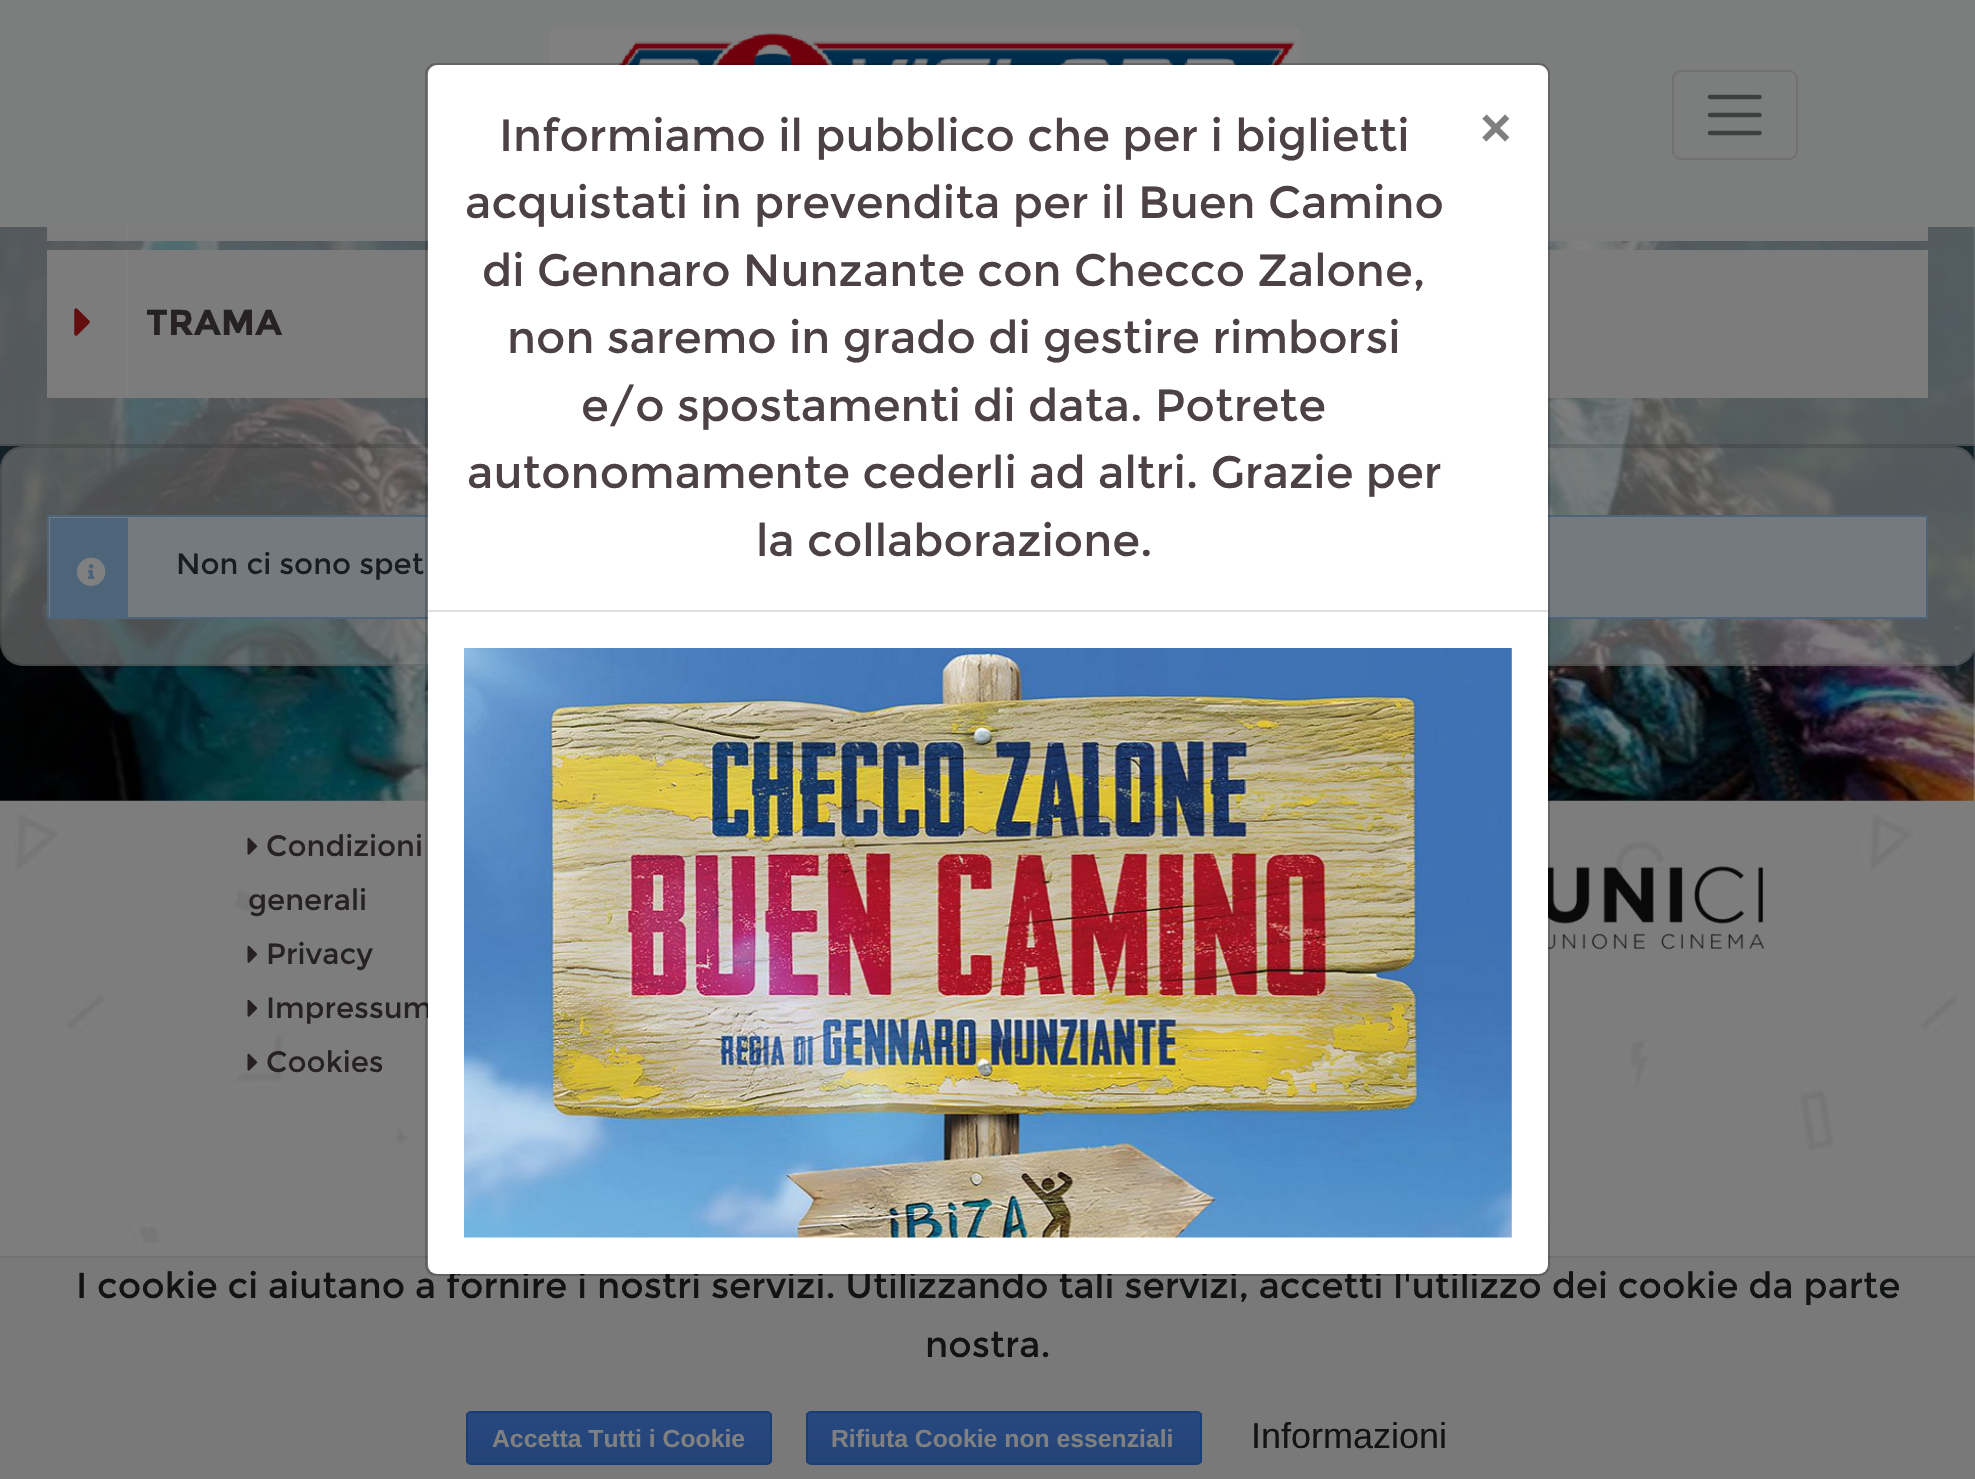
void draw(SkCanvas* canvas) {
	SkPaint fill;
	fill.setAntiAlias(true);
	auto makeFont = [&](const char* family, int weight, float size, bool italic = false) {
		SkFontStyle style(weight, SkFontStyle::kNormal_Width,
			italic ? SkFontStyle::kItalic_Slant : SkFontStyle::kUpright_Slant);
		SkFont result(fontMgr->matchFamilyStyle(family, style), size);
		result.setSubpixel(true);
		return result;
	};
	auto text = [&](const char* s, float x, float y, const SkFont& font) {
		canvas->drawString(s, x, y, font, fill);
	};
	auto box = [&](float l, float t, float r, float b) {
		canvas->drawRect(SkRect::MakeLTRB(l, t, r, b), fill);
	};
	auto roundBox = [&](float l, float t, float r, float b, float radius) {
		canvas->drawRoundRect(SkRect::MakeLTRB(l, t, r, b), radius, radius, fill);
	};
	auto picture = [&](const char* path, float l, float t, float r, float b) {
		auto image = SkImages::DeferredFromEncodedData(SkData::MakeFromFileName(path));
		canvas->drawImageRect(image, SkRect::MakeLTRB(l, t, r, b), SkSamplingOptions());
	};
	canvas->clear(0xFFFFFFFF);
	picture("image1.png", 0, 227, 1975, 801);
	fill.setColor(0x99808080);
	box(0, 227, 1975, 446);
	fill.setStyle(SkPaint::kStroke_Style);
	fill.setStrokeWidth(2);
	fill.setColor(0x1F000000);
	canvas->drawRect(SkRect::MakeLTRB(-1, -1, 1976, 445), fill);
	fill.setStyle(SkPaint::kFill_Style);
	fill.setColor(0xFF7C7C7D);
	box(49, 227, 1926, 239);
	fill.setStyle(SkPaint::kStroke_Style);
	canvas->drawRect(SkRect::MakeLTRB(48, 93, 1927, 240), fill);
	fill.setStyle(SkPaint::kFill_Style);
	fill.setColor(0xFF7C7D7D);
	box(0, 0, 1975, 227);
	picture("image0.png", 549, 29, 1300, 65);
	fill.setStyle(SkPaint::kStroke_Style);
	fill.setColor(0xFF707071);
	canvas->drawRoundRect(SkRect::MakeLTRB(1673, 71, 1797, 159), 8, 8, fill);
	fill.setStrokeWidth(4.5f);
	fill.setStrokeCap(SkPaint::kRound_Cap);
	fill.setColor(0xFF3E3F3F);
	canvas->drawPath(SkPathBuilder().moveTo(1710, 97).lineTo(1759.5f, 97).moveTo(1710, 115).lineTo(1759.5f, 115).moveTo(1710, 133).lineTo(1759.5f, 133).detach(), fill);
	fill.setStyle(SkPaint::kFill_Style);
	fill.setColor(0xFF808080);
	box(126, 227, 128, 239);
	box(1921, 250, 1928, 257);
	fill.setColor(0xFF7C7C7D);
	canvas->drawPath(SkPathBuilder().moveTo(47, 250).lineTo(1921, 250).cubicTo(1925, 250, 1928, 253, 1928, 257).lineTo(1928, 398).lineTo(47, 398).close().detach(), fill);
	fill.setColor(0xFF808080);
	box(126, 252, 128, 396);
	picture("image2.png", 74, 308, 90, 336);
	fill.setColor(0x99808080);
	roundBox(0, 446, 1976, 666, 23);
	fill.setStyle(SkPaint::kStroke_Style);
	fill.setStrokeWidth(2);
	fill.setStrokeCap(SkPaint::kButt_Cap);
	fill.setColor(0x1F000000);
	canvas->drawRoundRect(SkRect::MakeLTRB(1, 447, 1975, 665), 22, 22, fill);
	fill.setStyle(SkPaint::kFill_Style);
	fill.setColor(0xFF747A80);
	canvas->drawRect(SkRect::MakeLTRB(48, 516, 1927, 618), fill);
	fill.setStyle(SkPaint::kStroke_Style);
	fill.setColor(0xFF4D6479);
	canvas->drawRect(SkRect::MakeLTRB(48, 516, 1927, 618), fill);
	fill.setStyle(SkPaint::kFill_Style);
	box(50, 518, 128, 617);
	picture("image3.png", 77, 557, 106, 586);
	picture("image5.png", 0, 800, 1975, 1256);
	picture("image6.png", 247, 837, 258, 855);
	picture("image6.png", 247, 945, 258, 963);
	picture("image6.png", 247, 999, 258, 1017);
	picture("image7.png", 247, 1053, 258, 1071);
	picture("image8.png", 1548, 865, 1764, 950);
	fill.setColor(0xFF797979);
	box(0, 1258, 1975, 1479);
	fill.setColor(0xFF727272);
	box(0, 1256, 1975, 1258);
	canvas->save();
	canvas->clipPath(SkPathBuilder().moveTo(471, 1411).lineTo(767, 1411).cubicTo(770, 1411, 772, 1413, 772, 1416).lineTo(772, 1460).cubicTo(772, 1463, 770, 1465, 767, 1465).lineTo(471, 1465).cubicTo(468, 1465, 466, 1463, 466, 1460).lineTo(466, 1416).cubicTo(466, 1413, 468, 1411, 471, 1411).close().detach(), true);
	{
		const SkColor colors[] = {0xFF27487F, 0xFF244477};
		const float stops[] = {0, 1};
		const SkPoint ends[] = {{619, 1413}, {619, 1463}};
		fill.setShader(SkGradientShader::MakeLinear(ends, colors, stops, 2, SkTileMode::kClamp));
		fill.setAlpha(255);
	}
	box(466, 1413, 772, 1463);
	canvas->restore();
	fill.setStyle(SkPaint::kStroke_Style);
	fill.setShader(nullptr);
	fill.setColor(0xFF183D77);
	canvas->drawRoundRect(SkRect::MakeLTRB(467, 1412, 771, 1464), 4, 4, fill);
	canvas->save();
	canvas->clipPath(SkPathBuilder().moveTo(811, 1411).lineTo(1197, 1411).cubicTo(1200, 1411, 1202, 1413, 1202, 1416).lineTo(1202, 1460).cubicTo(1202, 1463, 1200, 1465, 1197, 1465).lineTo(811, 1465).cubicTo(808, 1465, 806, 1463, 806, 1460).lineTo(806, 1416).cubicTo(806, 1413, 808, 1411, 811, 1411).close().detach(), true);
	fill.setStyle(SkPaint::kFill_Style);
	{
		const SkColor colors[] = {0xFF27487F, 0xFF244477};
		const float stops[] = {0, 1};
		const SkPoint ends[] = {{1004, 1413}, {1004, 1463}};
		fill.setShader(SkGradientShader::MakeLinear(ends, colors, stops, 2, SkTileMode::kClamp));
		fill.setAlpha(255);
	}
	box(806, 1413, 1202, 1463);
	canvas->restore();
	fill.setStyle(SkPaint::kStroke_Style);
	fill.setShader(nullptr);
	fill.setColor(0xFF183D77);
	canvas->drawRoundRect(SkRect::MakeLTRB(807, 1412, 1201, 1464), 4, 4, fill);
	auto font1 = makeFont("Montserrat", 700, 36);
	fill.setStyle(SkPaint::kFill_Style);
	fill.setColor(0xFF262123);
	text("TRAMA", 146, 335, font1);
	auto font2 = makeFont("Montserrat", 400, 29.25f);
	fill.setColor(0xFF1A1D20);
	text("Non ci sono spet", 176, 574, font2);
	fill.setColor(0xFF262123);
	text("Condizioni", 266, 856, font2);
	text("generali", 248, 910, font2);
	text("Privacy", 266, 964, font2);
	text("Impressum", 266, 1018, font2);
	text("Cookies", 266, 1072, font2);
	auto font3 = makeFont("Montserrat", 400, 36);
	fill.setColor(0xFF111315);
	text("I cookie ci aiutano a fornire i nostri servizi. Utilizzando tali servizi, accetti l'utilizzo dei cookie da parte", 76, 1298, font3);
	fill.setColor(0xFFFFFFFF);
	roundBox(428, 65, 1548, 1274, 9);
	fill.setStyle(SkPaint::kStroke_Style);
	fill.setColor(0x33000000);
	canvas->drawRoundRect(SkRect::MakeLTRB(426, 64, 1549, 1275), 10, 10, fill);
	picture("image4.png", 464, 648, 1512, 1238);
	auto font4 = makeFont("Liberation Sans", 700, 54);
	fill.setStyle(SkPaint::kFill_Style);
	fill.setColor(0xFF808080);
	text("×", 1480, 146, font4);
	auto font5 = makeFont("Montserrat", 400, 45);
	fill.setColor(0xFF4C4145);
	text("la collaborazione.", 756, 556, font5);
	text("autonomamente cederli ad altri. Grazie per", 467, 488, font5);
	text("e/o spostamenti di data. Potrete", 581, 421, font5);
	text("non saremo in grado di gestire rimborsi", 507, 353, font5);
	text("di Gennaro Nunzante con Checco Zalone,", 482, 286, font5);
	text("acquistati in prevendita per il Buen Camino", 465, 218, font5);
	text("Informiamo il pubblico che per i biglietti", 499, 151, font5);
	fill.setColor(0xFFDEE2E6);
	box(428, 610, 1548, 612);
	fill.setColor(0xFF111315);
	text("nostra.", 925, 1357, font3);
	auto font6 = makeFont("Liberation Sans", 700, 24.75f);
	fill.setColor(0xFF808080);
	text("Accetta Tutti i Cookie", 492, 1447, font6);
	text("Rifiuta Cookie non essenziali", 831, 1447, font6);
	auto font7 = makeFont("Liberation Sans", 400, 36);
	fill.setColor(0xFF111315);
	text("Informazioni", 1251, 1448, font7);
}
